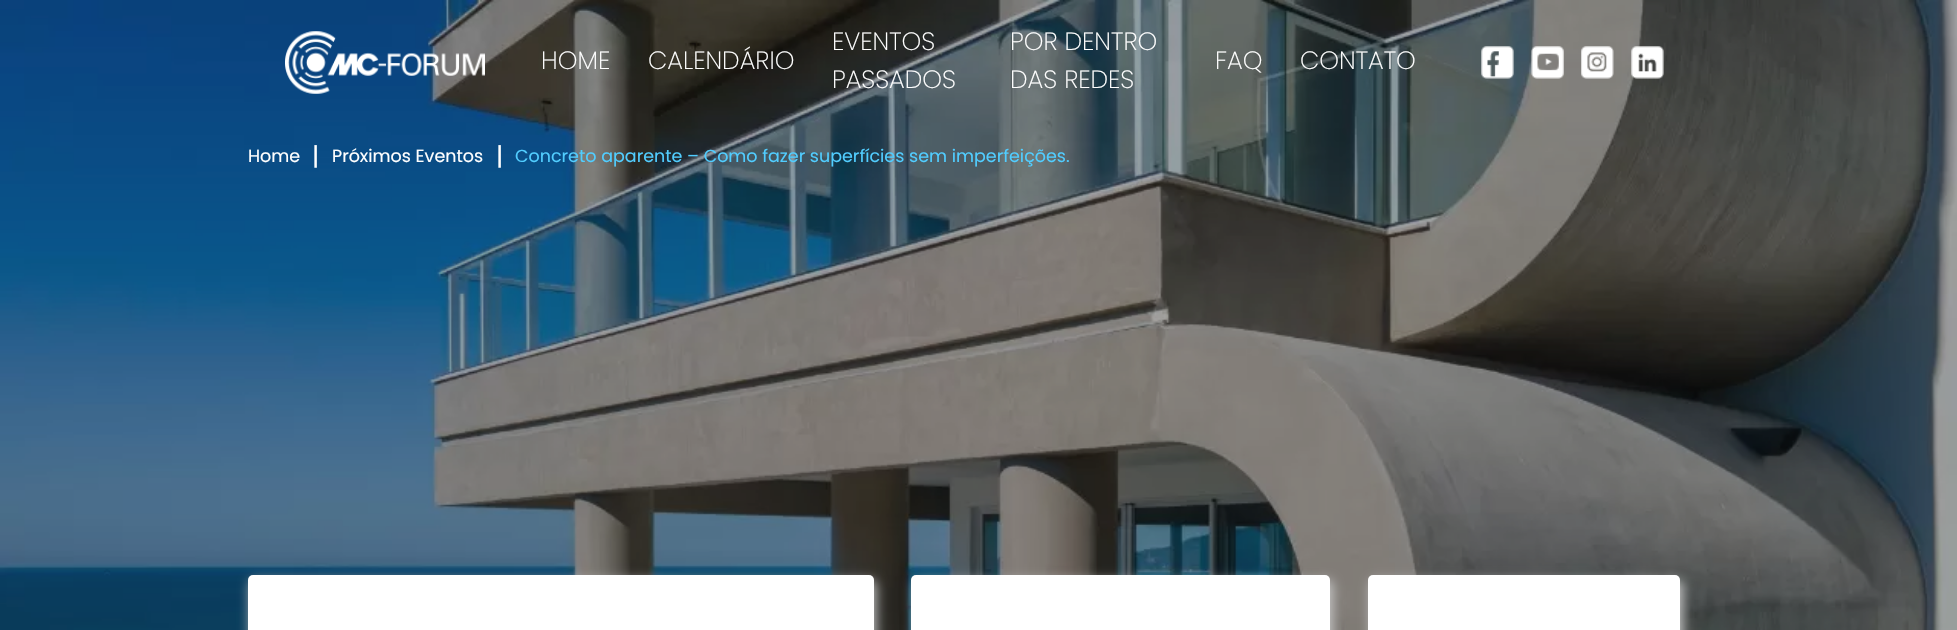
void draw(SkCanvas* canvas) {
	SkPaint fill;
	fill.setAntiAlias(true);
	auto makeFont = [&](const char* family, int weight, float size, bool italic = false) {
		SkFontStyle style(weight, SkFontStyle::kNormal_Width,
			italic ? SkFontStyle::kItalic_Slant : SkFontStyle::kUpright_Slant);
		SkFont result(fontMgr->matchFamilyStyle(family, style), size);
		result.setSubpixel(true);
		return result;
	};
	auto text = [&](const char* s, float x, float y, const SkFont& font) {
		canvas->drawString(s, x, y, font, fill);
	};
	auto roundBox = [&](float l, float t, float r, float b, float radius) {
		canvas->drawRoundRect(SkRect::MakeLTRB(l, t, r, b), radius, radius, fill);
	};
	auto picture = [&](const char* path, float l, float t, float r, float b) {
		auto image = SkImages::DeferredFromEncodedData(SkData::MakeFromFileName(path));
		canvas->drawImageRect(image, SkRect::MakeLTRB(l, t, r, b), SkSamplingOptions());
	};
	canvas->clear(0xFFFFFFFF);
	picture("image5.png", 0, 0, 1957, 630);
	picture("image0.png", 285, 31, 485, 94);
	picture("image1.png", 1481, 46, 1514, 79);
	picture("image2.png", 1531, 46, 1564, 79);
	picture("image3.png", 1581, 46, 1614, 79);
	picture("image4.png", 1631, 46, 1664, 79);
	fill.setColor(0xFFC4C4C4);
	fill.setMaskFilter(SkMaskFilter::MakeBlur(kNormal_SkBlurStyle, 6));
	canvas->drawRoundRect(SkRect::MakeLTRB(250, 580, 876, 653), 5, 5, fill);
	fill.setMaskFilter(nullptr);
	fill.setColor(0xFFFFFFFF);
	roundBox(248, 575, 874, 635, 5);
	fill.setColor(0xFFC4C4C4);
	fill.setMaskFilter(SkMaskFilter::MakeBlur(kNormal_SkBlurStyle, 6));
	canvas->drawRoundRect(SkRect::MakeLTRB(914, 580, 1333, 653), 5, 5, fill);
	fill.setMaskFilter(nullptr);
	fill.setColor(0xFFFFFFFF);
	roundBox(911, 575, 1330, 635, 5);
	fill.setColor(0xFFC4C4C4);
	fill.setMaskFilter(SkMaskFilter::MakeBlur(kNormal_SkBlurStyle, 6));
	canvas->drawRoundRect(SkRect::MakeLTRB(1370, 580, 1683, 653), 5, 5, fill);
	fill.setMaskFilter(nullptr);
	fill.setColor(0xFFFFFFFF);
	roundBox(1368, 575, 1680, 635, 5);
	auto font1 = makeFont("Poppins", 200, 25);
	text("HOME", 541, 69, font1);
	text("CALENDÁRIO", 648, 69, font1);
	text("EVENTOS", 832, 50, font1);
	text("PASSADOS", 832, 88, font1);
	text("POR DENTRO", 1010, 50, font1);
	text("DAS REDES", 1010, 88, font1);
	text("FAQ", 1215, 69, font1);
	text("CONTATO", 1300, 69, font1);
	auto font2 = makeFont("Poppins", 400, 17.5f);
	text("Home", 248, 162, font2);
	auto font3 = makeFont("Poppins", 400, 25);
	text("|", 312, 165, font3);
	text("Próximos Eventos", 332, 162, font2);
	text("|", 496, 165, font3);
	fill.setColor(0xFF51CDFF);
	text("Concreto aparente – Como fazer superfícies sem imperfeições.", 515, 162, font2);
}
